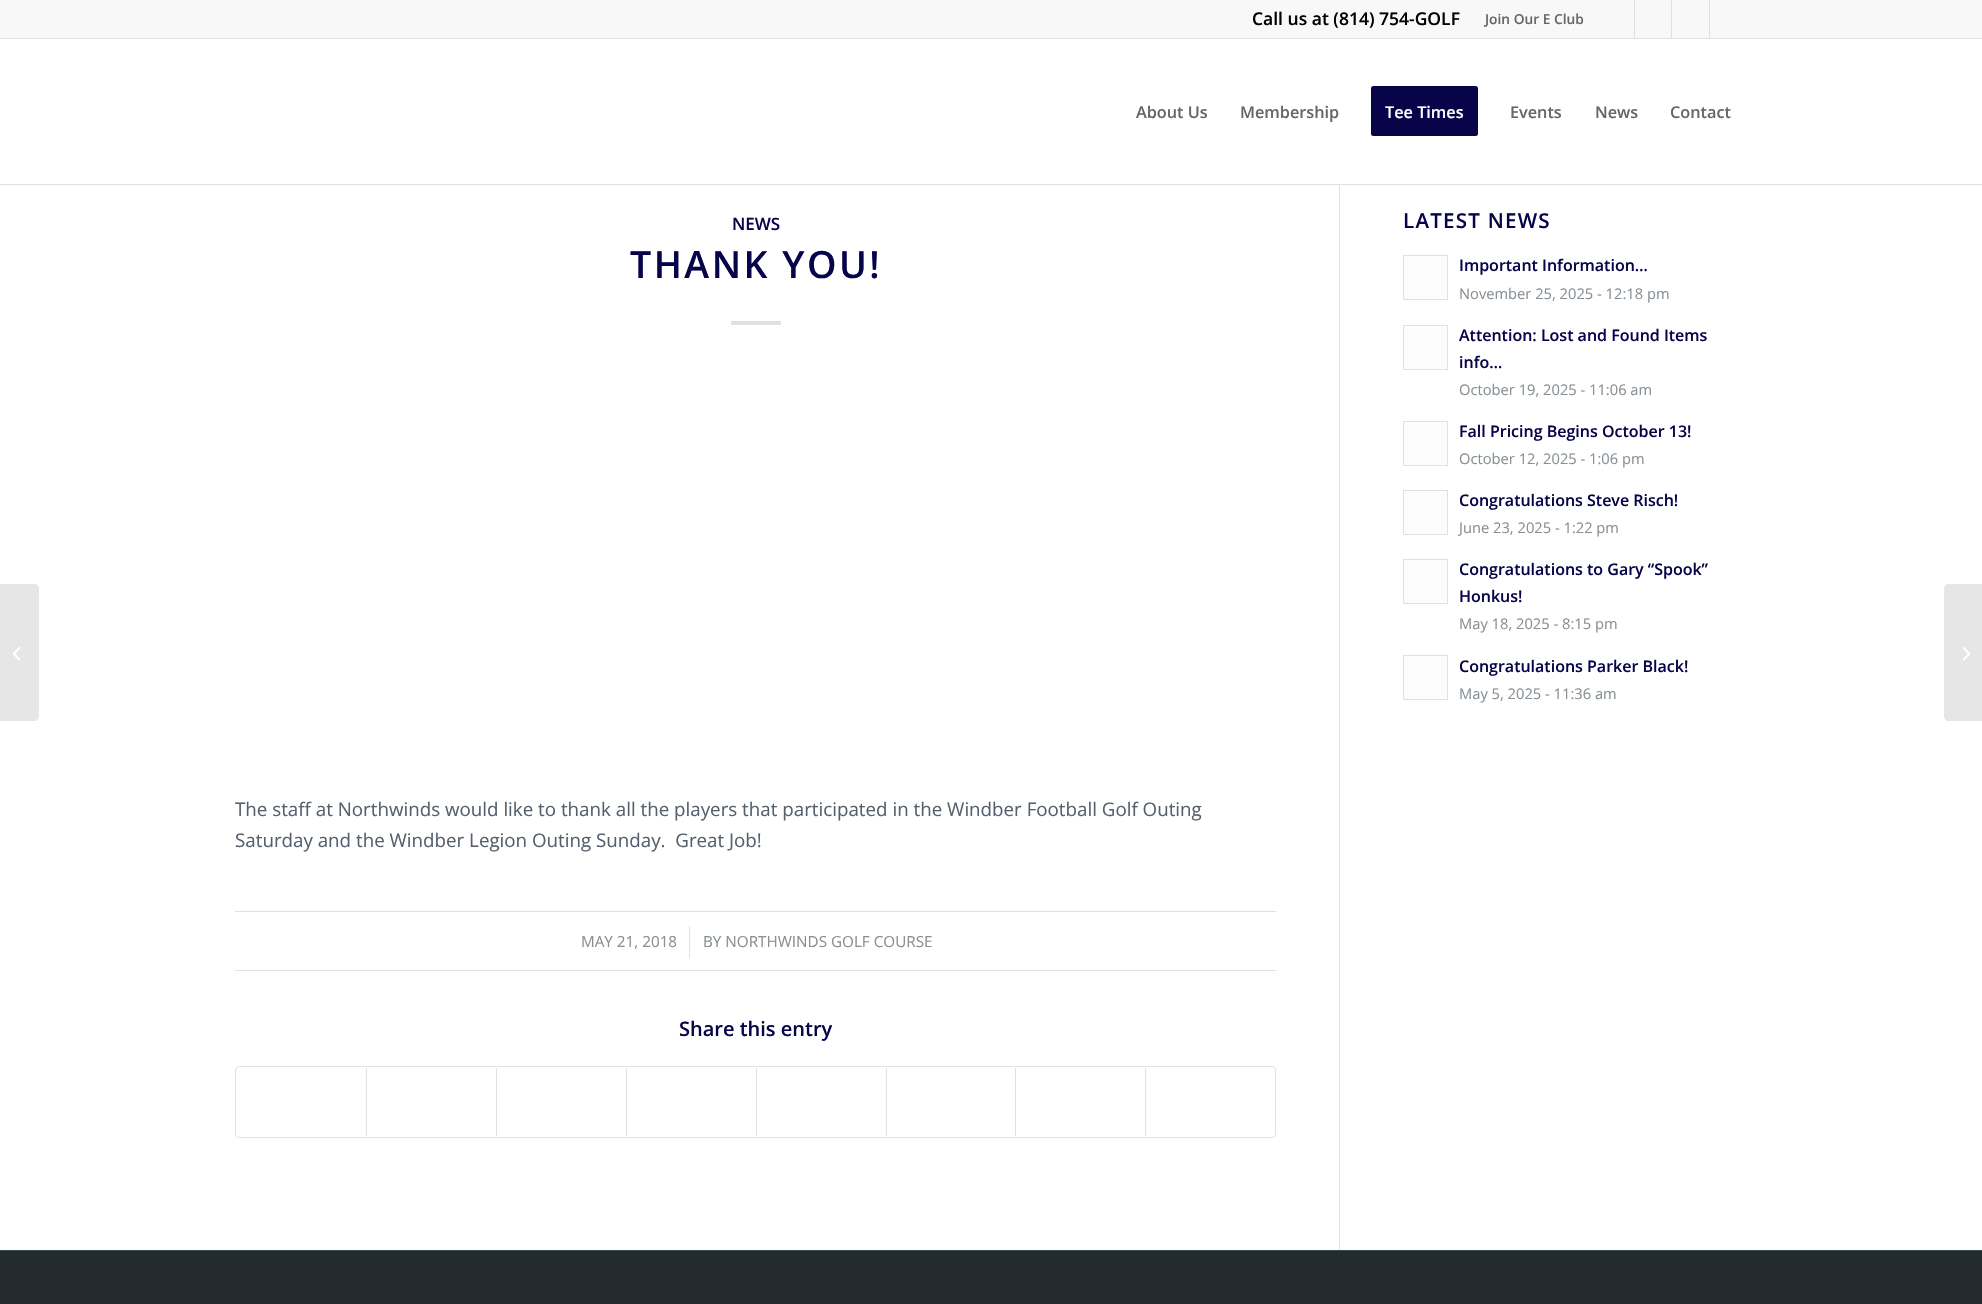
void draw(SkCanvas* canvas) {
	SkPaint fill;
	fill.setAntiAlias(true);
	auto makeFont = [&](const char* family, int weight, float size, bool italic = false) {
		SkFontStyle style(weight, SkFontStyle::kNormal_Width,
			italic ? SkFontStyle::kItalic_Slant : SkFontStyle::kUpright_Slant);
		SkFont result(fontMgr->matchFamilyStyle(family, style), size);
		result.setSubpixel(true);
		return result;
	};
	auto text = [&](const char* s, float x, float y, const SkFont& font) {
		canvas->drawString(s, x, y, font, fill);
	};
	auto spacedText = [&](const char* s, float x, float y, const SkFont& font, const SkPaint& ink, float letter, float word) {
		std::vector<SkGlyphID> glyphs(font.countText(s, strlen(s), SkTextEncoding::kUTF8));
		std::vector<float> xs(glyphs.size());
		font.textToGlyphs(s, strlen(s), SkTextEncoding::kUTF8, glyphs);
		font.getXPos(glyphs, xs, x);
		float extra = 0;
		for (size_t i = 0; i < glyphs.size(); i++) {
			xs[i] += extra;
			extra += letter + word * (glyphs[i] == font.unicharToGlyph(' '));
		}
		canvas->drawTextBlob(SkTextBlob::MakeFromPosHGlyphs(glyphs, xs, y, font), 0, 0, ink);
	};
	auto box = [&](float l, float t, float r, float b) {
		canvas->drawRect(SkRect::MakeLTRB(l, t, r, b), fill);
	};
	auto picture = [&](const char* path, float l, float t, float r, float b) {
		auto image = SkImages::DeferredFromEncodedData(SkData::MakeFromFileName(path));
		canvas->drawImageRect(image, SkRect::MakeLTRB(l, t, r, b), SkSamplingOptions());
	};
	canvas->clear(0xFFFFFFFF);
	fill.setColor(0xFFF8F8F8);
	box(0, 0, 1982, 38);
	fill.setColor(0xFFE1E1E1);
	box(0, 38, 1982, 39);
	box(1634, 0, 1635, 38);
	box(1671, 0, 1672, 38);
	box(1709, 0, 1710, 38);
	box(0, 184, 1982, 185);
	fill.setColor(0xFF070449);
	canvas->drawRoundRect(SkRect::MakeLTRB(1372.5f, 87.5f, 1476.5f, 134.5f), 1, 1, fill);
	fill.setStyle(SkPaint::kStroke_Style);
	fill.setStrokeWidth(3);
	canvas->drawRoundRect(SkRect::MakeLTRB(1372.5f, 87.5f, 1476.5f, 134.5f), 1, 1, fill);
	fill.setStyle(SkPaint::kFill_Style);
	fill.setColor(0xFFE6E6E6);
	canvas->drawPath(SkPathBuilder().moveTo(0, 584).lineTo(34, 584).cubicTo(37, 584, 39, 586, 39, 589).lineTo(39, 716).cubicTo(39, 719, 37, 721, 34, 721).lineTo(0, 721).close().detach(), fill);
	picture("image0.png", 13, 647, 20, 661);
	fill.setColor(0xFFE1E1E1);
	box(1339, 185, 1340, 1250);
	box(731, 321, 781, 325);
	box(235, 911, 1276, 912);
	box(235, 970, 1276, 971);
	box(689, 926, 690, 958);
	fill.setStyle(SkPaint::kStroke_Style);
	fill.setStrokeWidth(1);
	canvas->drawRoundRect(SkRect::MakeLTRB(235.5f, 1066.5f, 1275.5f, 1137.5f), 3.5f, 3.5f, fill);
	fill.setStyle(SkPaint::kFill_Style);
	box(366, 1068, 367, 1136);
	box(496, 1068, 497, 1136);
	box(626, 1068, 627, 1136);
	box(756, 1068, 757, 1136);
	box(886, 1068, 887, 1136);
	box(1015, 1068, 1016, 1136);
	box(1145, 1068, 1146, 1136);
	fill.setColor(0xFFFCFCFC);
	canvas->drawRect(SkRect::MakeLTRB(1403.5f, 255.5f, 1447.5f, 299.5f), fill);
	fill.setStyle(SkPaint::kStroke_Style);
	fill.setColor(0xFFE1E1E1);
	canvas->drawRect(SkRect::MakeLTRB(1403.5f, 255.5f, 1447.5f, 299.5f), fill);
	fill.setStyle(SkPaint::kFill_Style);
	fill.setColor(0xFFFCFCFC);
	canvas->drawRect(SkRect::MakeLTRB(1403.5f, 325.5f, 1447.5f, 369.5f), fill);
	fill.setStyle(SkPaint::kStroke_Style);
	fill.setColor(0xFFE1E1E1);
	canvas->drawRect(SkRect::MakeLTRB(1403.5f, 325.5f, 1447.5f, 369.5f), fill);
	fill.setStyle(SkPaint::kFill_Style);
	fill.setColor(0xFFFCFCFC);
	canvas->drawRect(SkRect::MakeLTRB(1403.5f, 421.5f, 1447.5f, 465.5f), fill);
	fill.setStyle(SkPaint::kStroke_Style);
	fill.setColor(0xFFE1E1E1);
	canvas->drawRect(SkRect::MakeLTRB(1403.5f, 421.5f, 1447.5f, 465.5f), fill);
	fill.setStyle(SkPaint::kFill_Style);
	fill.setColor(0xFFFCFCFC);
	canvas->drawRect(SkRect::MakeLTRB(1403.5f, 490.5f, 1447.5f, 534.5f), fill);
	fill.setStyle(SkPaint::kStroke_Style);
	fill.setColor(0xFFE1E1E1);
	canvas->drawRect(SkRect::MakeLTRB(1403.5f, 490.5f, 1447.5f, 534.5f), fill);
	fill.setStyle(SkPaint::kFill_Style);
	fill.setColor(0xFFFCFCFC);
	canvas->drawRect(SkRect::MakeLTRB(1403.5f, 559.5f, 1447.5f, 603.5f), fill);
	fill.setStyle(SkPaint::kStroke_Style);
	fill.setColor(0xFFE1E1E1);
	canvas->drawRect(SkRect::MakeLTRB(1403.5f, 559.5f, 1447.5f, 603.5f), fill);
	fill.setStyle(SkPaint::kFill_Style);
	fill.setColor(0xFFFCFCFC);
	canvas->drawRect(SkRect::MakeLTRB(1403.5f, 655.5f, 1447.5f, 699.5f), fill);
	fill.setStyle(SkPaint::kStroke_Style);
	fill.setColor(0xFFE1E1E1);
	canvas->drawRect(SkRect::MakeLTRB(1403.5f, 655.5f, 1447.5f, 699.5f), fill);
	fill.setStyle(SkPaint::kFill_Style);
	fill.setColor(0xFF232B30);
	box(0, 1251, 1982, 1304);
	fill.setColor(0xFF384852);
	box(0, 1250, 1982, 1251);
	fill.setColor(0xFFE6E6E6);
	canvas->drawPath(SkPathBuilder().moveTo(1949, 584).lineTo(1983, 584).lineTo(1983, 721).lineTo(1949, 721).cubicTo(1946, 721, 1944, 719, 1944, 716).lineTo(1944, 589).cubicTo(1944, 586, 1946, 584, 1949, 584).close().detach(), fill);
	picture("image1.png", 1963, 647, 1970, 661);
	auto font1 = makeFont("Open Sans", 600, 17.5f);
	fill.setColor(0xFF000000);
	text("Call us at (814) 754-GOLF", 1252, 25, font1);
	auto font2 = makeFont("Open Sans", 600, 13.75f);
	fill.setColor(0xFF666666);
	text("Join Our E Club", 1485, 24, font2);
	auto font3 = makeFont("Open Sans", 600, 16.25f);
	text("About Us", 1136, 118, font3);
	text("Membership", 1240, 118, font3);
	fill.setColor(0xFFFFFFFF);
	text("Tee Times", 1385, 118, font3);
	fill.setColor(0xFF666666);
	text("Events", 1510, 118, font3);
	text("News", 1595, 118, font3);
	text("Contact", 1670, 118, font3);
	auto font4 = makeFont("Open Sans", 600, 17);
	fill.setColor(0xFF070449);
	text("NEWS", 732, 230, font4);
	auto font5 = makeFont("Open Sans", 600, 37.5f);
	spacedText("THANK YOU!", 630, 278, font5, fill, 2.5f, 0);
	auto font6 = makeFont("Open Sans", 400, 18.75f);
	fill.setColor(0xFF55606E);
	text("The staff at Northwinds would like to thank all the players that participated in the Windber Football Golf Outing", 235, 816, font6);
	text("Saturday and the Windber Legion Outing Sunday.  Great Job!", 235, 847, font6);
	auto font7 = makeFont("Open Sans", 400, 15.25f);
	fill.setColor(0xFF889095);
	text("MAY 21, 2018", 581, 947, font7);
	text("BY NORTHWINDS GOLF COURSE", 703, 947, font7);
	auto font8 = makeFont("Open Sans", 600, 20);
	fill.setColor(0xFF070449);
	text("Share this entry", 679, 1036, font8);
	auto font9 = makeFont("Open Sans", 600, 20.5f);
	spacedText("LATEST NEWS", 1403, 228, font9, fill, 1.25f, 0);
	auto font10 = makeFont("Open Sans", 600, 16);
	text("Important Information…", 1459, 271, font10);
	auto font11 = makeFont("Open Sans", 400, 14.7f);
	fill.setColor(0xFF889095);
	text("November 25, 2025 - 12:18 pm", 1459, 299, font11);
	fill.setColor(0xFF070449);
	text("Attention: Lost and Found Items", 1459, 341, font10);
	text("info…", 1459, 368, font10);
	fill.setColor(0xFF889095);
	text("October 19, 2025 - 11:06 am", 1459, 395, font11);
	fill.setColor(0xFF070449);
	text("Fall Pricing Begins October 13!", 1459, 437, font10);
	fill.setColor(0xFF889095);
	text("October 12, 2025 - 1:06 pm", 1459, 464, font11);
	fill.setColor(0xFF070449);
	text("Congratulations Steve Risch!", 1459, 506, font10);
	fill.setColor(0xFF889095);
	text("June 23, 2025 - 1:22 pm", 1459, 533, font11);
	fill.setColor(0xFF070449);
	text("Congratulations to Gary “Spook”", 1459, 575, font10);
	text("Honkus!", 1459, 602, font10);
	fill.setColor(0xFF889095);
	text("May 18, 2025 - 8:15 pm", 1459, 629, font11);
	fill.setColor(0xFF070449);
	text("Congratulations Parker Black!", 1459, 672, font10);
	fill.setColor(0xFF889095);
	text("May 5, 2025 - 11:36 am", 1459, 699, font11);
}
